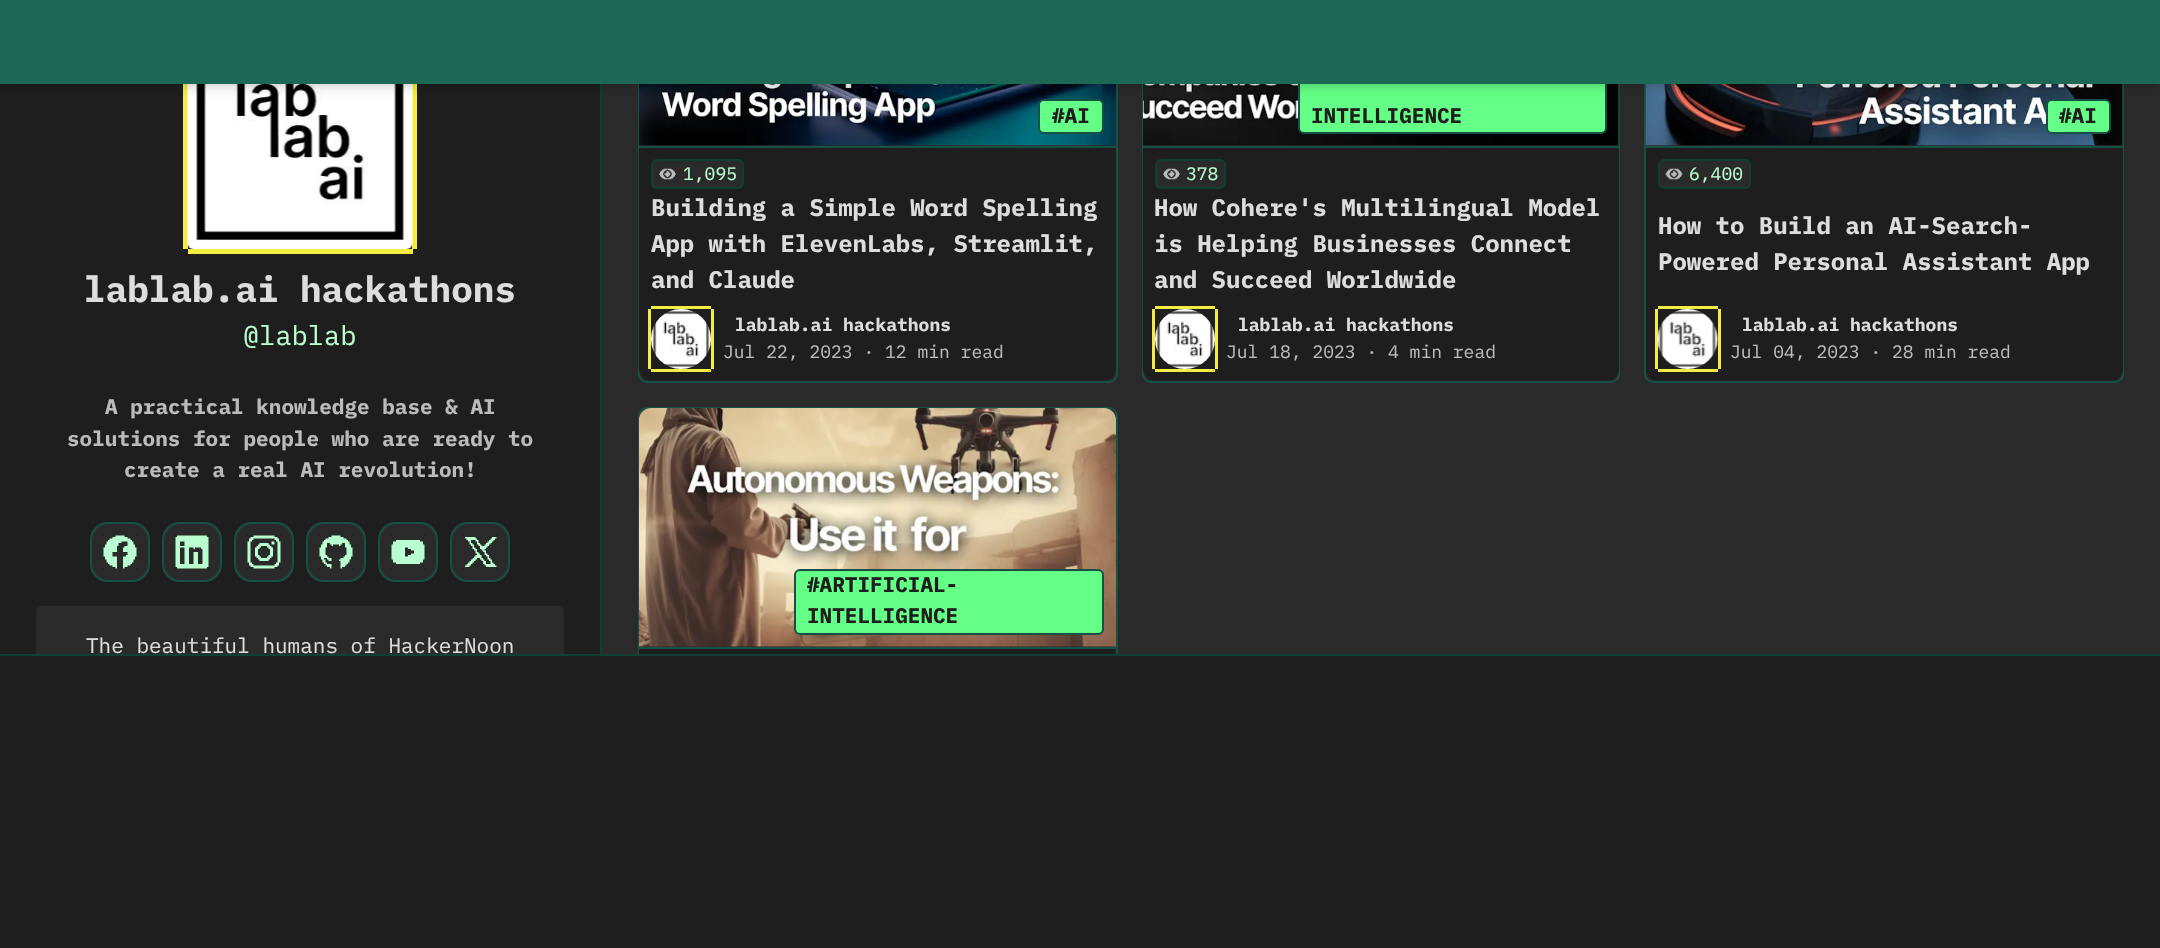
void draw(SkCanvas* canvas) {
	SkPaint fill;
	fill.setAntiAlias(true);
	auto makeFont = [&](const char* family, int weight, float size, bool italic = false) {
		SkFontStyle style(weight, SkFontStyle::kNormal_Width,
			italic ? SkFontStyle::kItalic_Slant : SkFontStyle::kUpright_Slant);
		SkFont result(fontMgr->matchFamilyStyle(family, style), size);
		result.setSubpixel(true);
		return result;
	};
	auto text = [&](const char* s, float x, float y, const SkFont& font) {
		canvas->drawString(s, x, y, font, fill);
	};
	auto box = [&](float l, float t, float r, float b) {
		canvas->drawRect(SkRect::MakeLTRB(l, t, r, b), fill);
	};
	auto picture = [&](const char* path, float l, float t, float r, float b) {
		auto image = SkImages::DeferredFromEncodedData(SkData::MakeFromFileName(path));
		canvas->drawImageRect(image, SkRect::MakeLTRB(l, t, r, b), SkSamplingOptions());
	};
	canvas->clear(0xFF1E1E1E);
	fill.setColor(0xFFF5EC43);
	box(183, 84, 188, 249);
	box(413, 84, 417, 249);
	canvas->drawPath(SkPathBuilder().moveTo(188, 249).lineTo(188, 254).lineTo(413, 254).lineTo(413, 29).lineTo(412, 29).lineTo(412, 249).close().detach(), fill);
	picture("image0.png", 187, 84, 413, 249);
	fill.setColor(0xFF2A2A2A);
	box(602, 84, 2160, 654);
	fill.setColor(0xFF0E3F32);
	box(600, 84, 602, 654);
	fill.setStyle(SkPaint::kStroke_Style);
	fill.setStrokeWidth(2);
	fill.setColor(0xFF155144);
	canvas->drawRoundRect(SkRect::MakeLTRB(639, -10, 1117, 382), 8, 8, fill);
	picture("image7.png", 639, 84, 1116, 146);
	canvas->drawRoundRect(SkRect::MakeLTRB(1143, -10, 1619, 382), 8, 8, fill);
	picture("image10.png", 1143, 84, 1619, 146);
	fill.setStyle(SkPaint::kFill_Style);
	fill.setColor(0xFF63FF86);
	canvas->drawRoundRect(SkRect::MakeLTRB(1299, 69, 1606, 133), 5, 5, fill);
	fill.setStyle(SkPaint::kStroke_Style);
	fill.setColor(0xFF155144);
	canvas->drawRoundRect(SkRect::MakeLTRB(1299, 69, 1606, 133), 5, 5, fill);
	canvas->drawRoundRect(SkRect::MakeLTRB(1645, -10, 2123, 382), 8, 8, fill);
	picture("image11.png", 1645, 84, 2123, 146);
	fill.setStyle(SkPaint::kFill_Style);
	fill.setColor(0x1A000000);
	fill.setMaskFilter(SkMaskFilter::MakeBlur(kNormal_SkBlurStyle, 3));
	canvas->drawRect(SkRect::MakeLTRB(3, 6, 2157, 84), fill);
	fill.setMaskFilter(nullptr);
	fill.setColor(0xFF63FF86);
	canvas->drawRoundRect(SkRect::MakeLTRB(1039, 100, 1103, 133), 5, 5, fill);
	fill.setStyle(SkPaint::kStroke_Style);
	fill.setColor(0xFF155144);
	canvas->drawRoundRect(SkRect::MakeLTRB(1039, 100, 1103, 133), 5, 5, fill);
	fill.setStyle(SkPaint::kFill_Style);
	fill.setColor(0xFF63FF86);
	canvas->drawRoundRect(SkRect::MakeLTRB(2047, 100, 2110, 133), 5, 5, fill);
	fill.setStyle(SkPaint::kStroke_Style);
	fill.setColor(0xFF155144);
	canvas->drawRoundRect(SkRect::MakeLTRB(2047, 100, 2110, 133), 5, 5, fill);
	fill.setStyle(SkPaint::kFill_Style);
	fill.setColor(0x1A000000);
	fill.setMaskFilter(SkMaskFilter::MakeBlur(kNormal_SkBlurStyle, 4.5f));
	canvas->drawRect(SkRect::MakeLTRB(2, 8, 2159, 89), fill);
	fill.setMaskFilter(nullptr);
	fill.setColor(0xFF1D6854);
	box(0, 0, 2160, 84);
	fill.setColor(0xFF0E3F32);
	box(0, 654, 2160, 656);
	fill.setColor(0xFF2A2A2A);
	canvas->drawRoundRect(SkRect::MakeLTRB(91, 523, 149, 581), 17, 17, fill);
	fill.setStyle(SkPaint::kStroke_Style);
	fill.setColor(0xFF155144);
	canvas->drawRoundRect(SkRect::MakeLTRB(91, 523, 149, 581), 17, 17, fill);
	picture("image1.png", 103, 535, 137, 569);
	fill.setStyle(SkPaint::kFill_Style);
	fill.setColor(0xFF2A2A2A);
	canvas->drawRoundRect(SkRect::MakeLTRB(163, 523, 221, 581), 17, 17, fill);
	fill.setStyle(SkPaint::kStroke_Style);
	fill.setColor(0xFF155144);
	canvas->drawRoundRect(SkRect::MakeLTRB(163, 523, 221, 581), 17, 17, fill);
	picture("image2.png", 175, 535, 209, 569);
	fill.setStyle(SkPaint::kFill_Style);
	fill.setColor(0xFF2A2A2A);
	canvas->drawRoundRect(SkRect::MakeLTRB(235, 523, 293, 581), 17, 17, fill);
	fill.setStyle(SkPaint::kStroke_Style);
	fill.setColor(0xFF155144);
	canvas->drawRoundRect(SkRect::MakeLTRB(235, 523, 293, 581), 17, 17, fill);
	picture("image3.png", 247, 535, 281, 569);
	fill.setStyle(SkPaint::kFill_Style);
	fill.setColor(0xFF2A2A2A);
	canvas->drawRoundRect(SkRect::MakeLTRB(307, 523, 365, 581), 17, 17, fill);
	fill.setStyle(SkPaint::kStroke_Style);
	fill.setColor(0xFF155144);
	canvas->drawRoundRect(SkRect::MakeLTRB(307, 523, 365, 581), 17, 17, fill);
	picture("image4.png", 319, 535, 353, 569);
	fill.setStyle(SkPaint::kFill_Style);
	fill.setColor(0xFF2A2A2A);
	canvas->drawRoundRect(SkRect::MakeLTRB(379, 523, 437, 581), 17, 17, fill);
	fill.setStyle(SkPaint::kStroke_Style);
	fill.setColor(0xFF155144);
	canvas->drawRoundRect(SkRect::MakeLTRB(379, 523, 437, 581), 17, 17, fill);
	picture("image5.png", 391, 540, 425, 564);
	fill.setStyle(SkPaint::kFill_Style);
	fill.setColor(0xFF2A2A2A);
	canvas->drawRoundRect(SkRect::MakeLTRB(451, 523, 509, 581), 17, 17, fill);
	fill.setStyle(SkPaint::kStroke_Style);
	fill.setColor(0xFF155144);
	canvas->drawRoundRect(SkRect::MakeLTRB(451, 523, 509, 581), 17, 17, fill);
	picture("image6.png", 465, 537, 497, 567);
	fill.setStyle(SkPaint::kFill_Style);
	fill.setColor(0xFF2A2A2A);
	canvas->drawPath(SkPathBuilder().moveTo(42, 606).lineTo(558, 606).cubicTo(561.5f, 606, 564, 608.5f, 564, 612).lineTo(564, 654).lineTo(36, 654).lineTo(36, 612).cubicTo(36, 608.5f, 38.5f, 606, 42, 606).close().detach(), fill);
	fill.setColor(0xFF1E1E1E);
	canvas->drawPath(SkPathBuilder().moveTo(639, 147).lineTo(1116, 147).lineTo(1116, 369).cubicTo(1116, 375.5f, 1110.5f, 381, 1104, 381).lineTo(651, 381).cubicTo(644.5f, 381, 639, 375.5f, 639, 369).close().detach(), fill);
	fill.setColor(0xFF155144);
	box(639, 146, 1116, 148);
	fill.setColor(0xFF2A2A2A);
	canvas->drawRoundRect(SkRect::MakeLTRB(652, 160, 743, 188), 5, 5, fill);
	fill.setStyle(SkPaint::kStroke_Style);
	fill.setColor(0xFF0E3F32);
	canvas->drawRoundRect(SkRect::MakeLTRB(652, 160, 743, 188), 5, 5, fill);
	picture("image8.png", 659, 168, 676, 180);
	fill.setStyle(SkPaint::kFill_Style);
	fill.setColor(0xFFF5EC43);
	box(648, 309, 651, 369);
	box(711, 309, 714, 369);
	box(651, 306, 711, 309);
	box(651, 369, 711, 372);
	picture("image9.png", 651, 309, 711, 369);
	fill.setColor(0xFF1E1E1E);
	canvas->drawPath(SkPathBuilder().moveTo(1143, 147).lineTo(1619, 147).lineTo(1619, 369).cubicTo(1619, 375.5f, 1613.5f, 381, 1607, 381).lineTo(1155, 381).cubicTo(1148.5f, 381, 1143, 375.5f, 1143, 369).close().detach(), fill);
	fill.setColor(0xFF155144);
	box(1143, 146, 1619, 148);
	fill.setColor(0xFF2A2A2A);
	canvas->drawRoundRect(SkRect::MakeLTRB(1156, 160, 1225, 188), 5, 5, fill);
	fill.setStyle(SkPaint::kStroke_Style);
	fill.setColor(0xFF0E3F32);
	canvas->drawRoundRect(SkRect::MakeLTRB(1156, 160, 1225, 188), 5, 5, fill);
	picture("image8.png", 1163, 168, 1180, 180);
	fill.setStyle(SkPaint::kFill_Style);
	fill.setColor(0xFFF5EC43);
	box(1152, 309, 1155, 369);
	box(1215, 309, 1218, 369);
	box(1155, 306, 1215, 309);
	box(1155, 369, 1215, 372);
	picture("image9.png", 1155, 309, 1215, 369);
	fill.setColor(0xFF1E1E1E);
	canvas->drawPath(SkPathBuilder().moveTo(1646, 147).lineTo(2123, 147).lineTo(2123, 369).cubicTo(2123, 375.5f, 2117.5f, 381, 2111, 381).lineTo(1658, 381).cubicTo(1651.5f, 381, 1646, 375.5f, 1646, 369).close().detach(), fill);
	fill.setColor(0xFF155144);
	box(1646, 146, 2123, 148);
	fill.setColor(0xFF2A2A2A);
	canvas->drawRoundRect(SkRect::MakeLTRB(1659, 160, 1750, 188), 5, 5, fill);
	fill.setStyle(SkPaint::kStroke_Style);
	fill.setColor(0xFF0E3F32);
	canvas->drawRoundRect(SkRect::MakeLTRB(1659, 160, 1750, 188), 5, 5, fill);
	picture("image12.png", 1665, 168, 1683, 180);
	fill.setStyle(SkPaint::kFill_Style);
	fill.setColor(0xFFF5EC43);
	box(1655, 309, 1658, 369);
	box(1718, 309, 1721, 369);
	canvas->drawPath(SkPathBuilder().moveTo(1658, 306).lineTo(1658, 309).lineTo(1718, 309).lineTo(1718, 366).lineTo(1718, 306).close().detach(), fill);
	canvas->drawPath(SkPathBuilder().moveTo(1658, 369).lineTo(1658, 372).lineTo(1718, 372).lineTo(1718, 312).lineTo(1718, 369).close().detach(), fill);
	picture("image13.png", 1657, 309, 1718, 369);
	canvas->save();
	canvas->clipRect(SkRect::MakeLTRB(602, 0, 2160, 654));
	fill.setStyle(SkPaint::kStroke_Style);
	fill.setColor(0xFF155144);
	canvas->drawRoundRect(SkRect::MakeLTRB(639, 408, 1117, 847), 8, 8, fill);
	canvas->restore();
	picture("image14.png", 639, 408, 1116, 647);
	fill.setStyle(SkPaint::kFill_Style);
	fill.setColor(0xFF63FF86);
	canvas->drawRoundRect(SkRect::MakeLTRB(795, 570, 1103, 634), 5, 5, fill);
	fill.setStyle(SkPaint::kStroke_Style);
	fill.setColor(0xFF155144);
	canvas->drawRoundRect(SkRect::MakeLTRB(795, 570, 1103, 634), 5, 5, fill);
	fill.setStyle(SkPaint::kFill_Style);
	fill.setColor(0xFF1E1E1E);
	box(639, 649, 1116, 654);
	fill.setColor(0xFF155144);
	box(639, 647, 1116, 649);
	auto font1 = makeFont("IBM Plex Mono", 700, 36);
	fill.setColor(0xFFDDDDDD);
	text("lablab.ai hackathons", 84, 302, font1);
	auto font2 = makeFont("IBM Plex Mono", 400, 27);
	fill.setColor(0xFFB9FFD0);
	text("@lablab", 243, 345, font2);
	auto font3 = makeFont("IBM Plex Mono", 700, 21);
	fill.setColor(0xFFBBBBBB);
	text("A practical knowledge base & AI", 105, 414, font3);
	text("solutions for people who are ready to", 67, 446, font3);
	text("create a real AI revolution!", 124, 477, font3);
	auto font4 = makeFont("IBM Plex Mono", 400, 21);
	fill.setColor(0xFFDDDDDD);
	text("The beautiful humans of HackerNoon", 86, 653, font4);
	fill.setColor(0xFF1E1E1E);
	text("#AI", 1052, 123, font3);
	auto font5 = makeFont("IBM Plex Mono", 400, 18);
	fill.setColor(0xFFB9FFD0);
	text("1,095", 683, 180, font5);
	auto font6 = makeFont("IBM Plex Mono", 700, 24);
	fill.setColor(0xFFDDDDDD);
	text("Building a Simple Word Spelling", 651, 216, font6);
	text("App with ElevenLabs, Streamlit,", 651, 252, font6);
	text("and Claude", 651, 288, font6);
	auto font7 = makeFont("IBM Plex Mono", 700, 18);
	text("lablab.ai hackathons", 735, 331, font7);
	fill.setColor(0xFFBBBBBB);
	text("Jul 22, 2023 · 12 min read", 723, 358, font5);
	fill.setColor(0xFF1E1E1E);
	text("INTELLIGENCE", 1311, 123, font3);
	fill.setColor(0xFFB9FFD0);
	text("378", 1186, 180, font5);
	fill.setColor(0xFFDDDDDD);
	text("How Cohere's Multilingual Model", 1154, 216, font6);
	text("is Helping Businesses Connect", 1154, 252, font6);
	text("and Succeed Worldwide", 1154, 288, font6);
	text("lablab.ai hackathons", 1238, 331, font7);
	fill.setColor(0xFFBBBBBB);
	text("Jul 18, 2023 · 4 min read", 1226, 358, font5);
	fill.setColor(0xFF1E1E1E);
	text("#AI", 2059, 123, font3);
	fill.setColor(0xFFB9FFD0);
	text("6,400", 1689, 180, font5);
	fill.setColor(0xFFDDDDDD);
	text("How to Build an AI-Search-", 1658, 234, font6);
	text("Powered Personal Assistant App", 1658, 270, font6);
	text("lablab.ai hackathons", 1742, 331, font7);
	fill.setColor(0xFFBBBBBB);
	text("Jul 04, 2023 · 28 min read", 1730, 358, font5);
	fill.setColor(0xFF1E1E1E);
	text("#ARTIFICIAL-", 807, 592, font3);
	text("INTELLIGENCE", 807, 623, font3);
}
